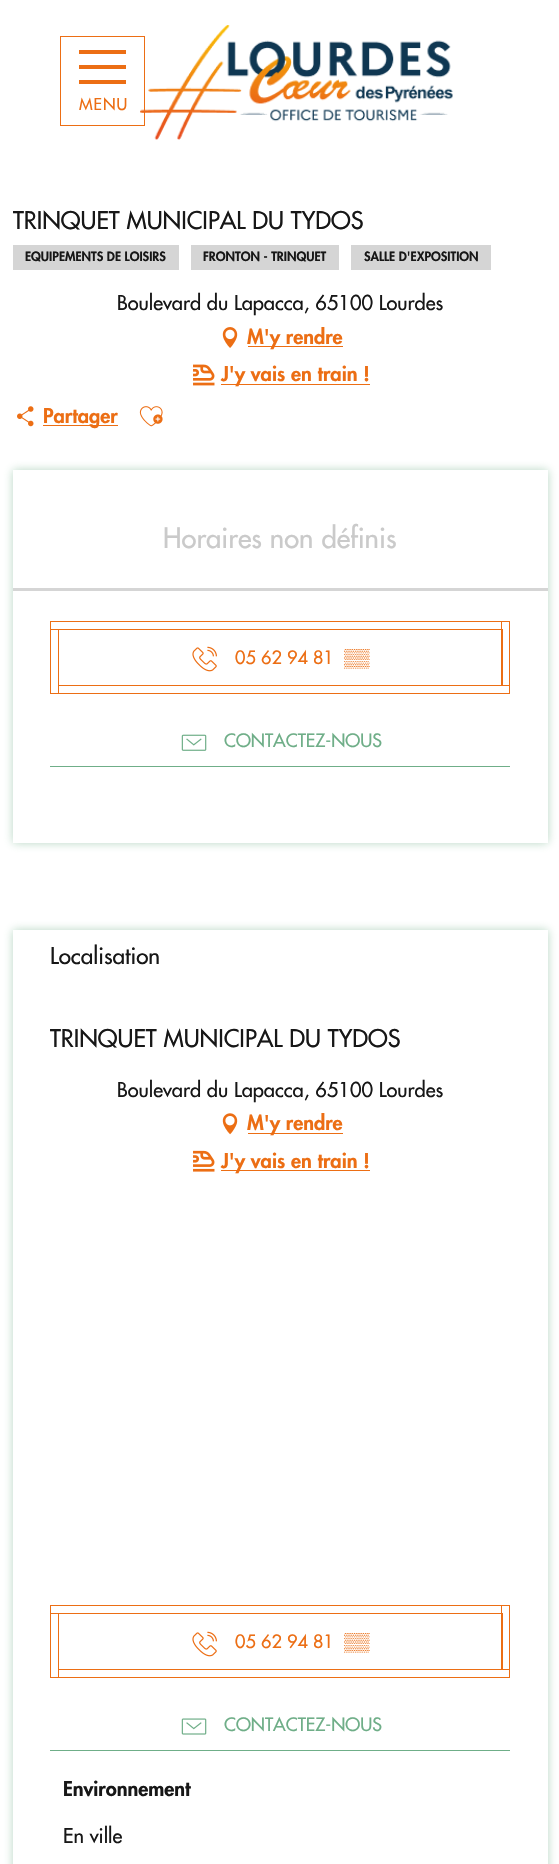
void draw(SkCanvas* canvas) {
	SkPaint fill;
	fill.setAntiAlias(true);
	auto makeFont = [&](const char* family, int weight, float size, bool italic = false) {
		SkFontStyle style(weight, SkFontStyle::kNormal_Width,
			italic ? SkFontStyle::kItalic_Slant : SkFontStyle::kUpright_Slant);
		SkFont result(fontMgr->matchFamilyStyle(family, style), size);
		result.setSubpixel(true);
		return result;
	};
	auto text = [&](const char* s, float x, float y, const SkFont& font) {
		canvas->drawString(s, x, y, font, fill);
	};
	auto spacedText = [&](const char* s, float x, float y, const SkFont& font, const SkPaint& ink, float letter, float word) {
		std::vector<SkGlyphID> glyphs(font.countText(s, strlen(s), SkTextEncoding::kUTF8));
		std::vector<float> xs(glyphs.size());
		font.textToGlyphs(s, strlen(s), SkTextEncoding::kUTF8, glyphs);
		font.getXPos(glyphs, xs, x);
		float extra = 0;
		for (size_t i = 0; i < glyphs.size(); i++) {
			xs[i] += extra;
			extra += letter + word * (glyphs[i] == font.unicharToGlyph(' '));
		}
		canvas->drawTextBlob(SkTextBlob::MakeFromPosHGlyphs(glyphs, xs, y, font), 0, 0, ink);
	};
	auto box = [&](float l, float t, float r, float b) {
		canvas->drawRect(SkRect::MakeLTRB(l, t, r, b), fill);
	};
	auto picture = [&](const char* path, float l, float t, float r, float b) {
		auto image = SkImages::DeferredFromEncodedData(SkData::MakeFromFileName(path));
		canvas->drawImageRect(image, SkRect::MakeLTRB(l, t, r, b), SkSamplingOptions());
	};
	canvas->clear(0xFFFFFFFF);
	fill.setStyle(SkPaint::kStroke_Style);
	fill.setStrokeWidth(1);
	fill.setColor(0xFFEC6E14);
	canvas->drawRect(SkRect::MakeLTRB(60.5f, 36.5f, 144.5f, 125.5f), fill);
	fill.setStyle(SkPaint::kFill_Style);
	box(79, 80, 126, 84);
	box(79, 65, 126, 69);
	box(79, 50, 126, 54);
	picture("image0.png", 140, 25, 453, 140);
	fill.setColor(0xFFD5D5D5);
	box(13, 245, 179, 270);
	box(191, 245, 339, 270);
	box(351, 245, 491, 270);
	picture("image1.png", 222, 327, 238, 348);
	fill.setColor(0xFFEC6E14);
	box(248, 346, 343, 347);
	picture("image2.png", 193, 364, 215, 386);
	box(221, 384, 370, 385);
	picture("image3.png", 17, 406, 34, 427);
	box(43, 425, 118, 426);
	picture("image4.png", 139, 406, 163, 427);
	canvas->save();
	canvas->clipPath(SkPathBuilder(SkPathFillType::kEvenOdd).moveTo(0, 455).lineTo(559, 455).lineTo(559, 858).lineTo(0, 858).close().moveTo(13, 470).lineTo(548, 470).lineTo(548, 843).lineTo(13, 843).close().detach(), true);
	fill.setColor(0x806FAE88);
	fill.setMaskFilter(SkMaskFilter::MakeBlur(kNormal_SkBlurStyle, 4.5f));
	canvas->drawRect(SkRect::MakeLTRB(13, 470, 548, 843), fill);
	fill.setMaskFilter(nullptr);
	canvas->restore();
	fill.setColor(0xFFFFFFFF);
	box(547, 483, 548, 830);
	fill.setColor(0xFFD5D5D5);
	box(13, 588, 548, 591);
	fill.setStyle(SkPaint::kStroke_Style);
	fill.setColor(0xFFEC6E14);
	canvas->drawRect(SkRect::MakeLTRB(50.5f, 621.5f, 509.5f, 693.5f), fill);
	picture("image5.png", 192, 646, 217, 672);
	canvas->drawRect(SkRect::MakeLTRB(58.5f, 629.5f, 502.5f, 685.5f), fill);
	canvas->drawRect(SkRect::MakeLTRB(50.5f, 629.5f, 58.5f, 693.5f), fill);
	canvas->drawRect(SkRect::MakeLTRB(501.5f, 621.5f, 509.5f, 685.5f), fill);
	fill.setStyle(SkPaint::kFill_Style);
	fill.setColor(0xFF6FAE88);
	box(50, 766, 510, 767);
	picture("image6.png", 181, 734, 207, 751);
	canvas->save();
	canvas->clipPath(SkPathBuilder(SkPathFillType::kEvenOdd).moveTo(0, 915).lineTo(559, 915).lineTo(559, 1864).lineTo(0, 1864).close().moveTo(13, 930).lineTo(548, 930).lineTo(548, 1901).lineTo(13, 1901).close().detach(), true);
	fill.setColor(0x806FAE88);
	fill.setMaskFilter(SkMaskFilter::MakeBlur(kNormal_SkBlurStyle, 4.5f));
	canvas->drawRect(SkRect::MakeLTRB(13, 930, 548, 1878), fill);
	fill.setMaskFilter(nullptr);
	canvas->restore();
	fill.setColor(0xFFFFFFFF);
	box(547, 986, 548, 1864);
	picture("image7.png", 222, 1113, 238, 1135);
	fill.setColor(0xFFEC6E14);
	box(248, 1133, 343, 1134);
	picture("image8.png", 193, 1150, 215, 1172);
	box(221, 1170, 370, 1171);
	fill.setStyle(SkPaint::kStroke_Style);
	canvas->drawRect(SkRect::MakeLTRB(50.5f, 1605.5f, 509.5f, 1677.5f), fill);
	picture("image5.png", 192, 1631, 217, 1657);
	canvas->drawRect(SkRect::MakeLTRB(58.5f, 1613.5f, 502.5f, 1669.5f), fill);
	canvas->drawRect(SkRect::MakeLTRB(50.5f, 1613.5f, 58.5f, 1677.5f), fill);
	canvas->drawRect(SkRect::MakeLTRB(501.5f, 1605.5f, 509.5f, 1669.5f), fill);
	fill.setStyle(SkPaint::kFill_Style);
	fill.setColor(0xFF6FAE88);
	box(50, 1750, 510, 1751);
	picture("image9.png", 181, 1718, 207, 1735);
	auto font1 = makeFont("Futura", 500, 16);
	fill.setColor(0xFFEC6E14);
	spacedText("MENU", 79, 110, font1, fill, 1, 0);
	auto font2 = makeFont("Futura", 500, 23.75f);
	fill.setColor(0xFF171717);
	text("TRINQUET MUNICIPAL DU TYDOS", 13, 229, font2);
	auto font3 = makeFont("Futura", 900, 12.5f);
	text("EQUIPEMENTS DE LOISIRS", 25, 261, font3);
	text("FRONTON - TRINQUET", 203, 261, font3);
	text("SALLE D'EXPOSITION", 364, 261, font3);
	auto font4 = makeFont("Futura", 500, 20);
	text("Boulevard du Lapacca, 65100 Lourdes", 117, 310, font4);
	auto font5 = makeFont("Futura", 900, 20);
	fill.setColor(0xFFEC6E14);
	text("M'y rendre", 247, 344, font5);
	text("J'y vais en train !", 221, 381, font5);
	text("Partager", 43, 423, font5);
	auto font6 = makeFont("Futura", 500, 27.5f);
	fill.setColor(0xFFCACACA);
	text("Horaires non définis", 163, 548, font6);
	auto font7 = makeFont("Futura", 500, 18);
	fill.setColor(0xFFEC6E14);
	text("05 62 94 81", 235, 664, font7);
	auto font8 = makeFont("Liberation Sans", 400, 18);
	text("▒▒", 344, 664, font8);
	fill.setColor(0xFF6FAE88);
	text("CONTACTEZ-NOUS", 224, 747, font7);
	auto font9 = makeFont("Futura", 500, 22.5f);
	fill.setColor(0xFF171717);
	text("Localisation", 50, 964, font9);
	text("TRINQUET MUNICIPAL DU TYDOS", 50, 1047, font2);
	text("Boulevard du Lapacca, 65100 Lourdes", 117, 1097, font4);
	fill.setColor(0xFFEC6E14);
	text("M'y rendre", 247, 1130, font5);
	text("J'y vais en train !", 221, 1168, font5);
	text("05 62 94 81", 235, 1648, font7);
	text("▒▒", 344, 1648, font8);
	fill.setColor(0xFF6FAE88);
	text("CONTACTEZ-NOUS", 224, 1731, font7);
	fill.setColor(0xFF171717);
	text("Environnement", 63, 1796, font5);
	text("En ville", 63, 1843, font4);
}
